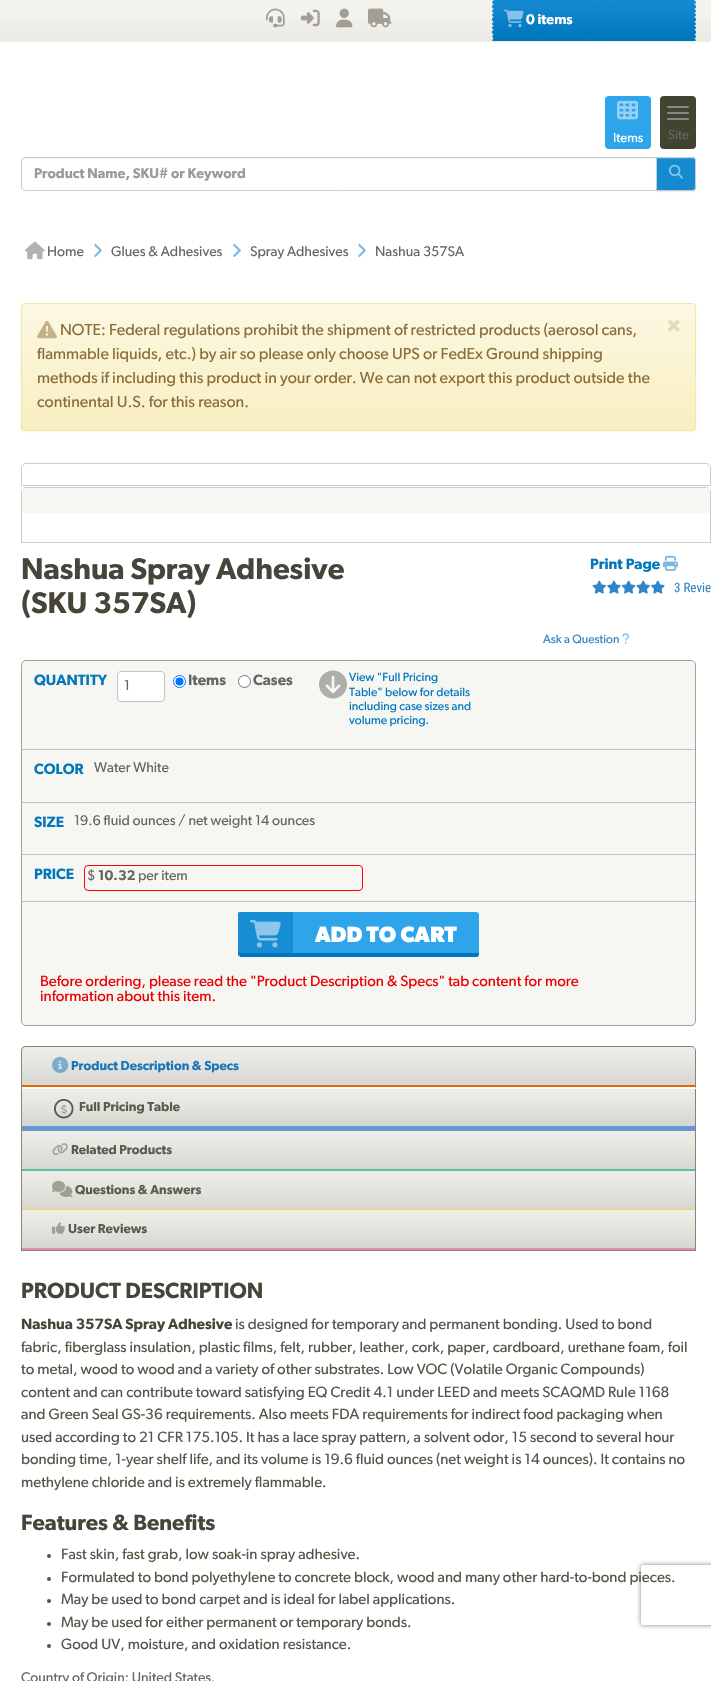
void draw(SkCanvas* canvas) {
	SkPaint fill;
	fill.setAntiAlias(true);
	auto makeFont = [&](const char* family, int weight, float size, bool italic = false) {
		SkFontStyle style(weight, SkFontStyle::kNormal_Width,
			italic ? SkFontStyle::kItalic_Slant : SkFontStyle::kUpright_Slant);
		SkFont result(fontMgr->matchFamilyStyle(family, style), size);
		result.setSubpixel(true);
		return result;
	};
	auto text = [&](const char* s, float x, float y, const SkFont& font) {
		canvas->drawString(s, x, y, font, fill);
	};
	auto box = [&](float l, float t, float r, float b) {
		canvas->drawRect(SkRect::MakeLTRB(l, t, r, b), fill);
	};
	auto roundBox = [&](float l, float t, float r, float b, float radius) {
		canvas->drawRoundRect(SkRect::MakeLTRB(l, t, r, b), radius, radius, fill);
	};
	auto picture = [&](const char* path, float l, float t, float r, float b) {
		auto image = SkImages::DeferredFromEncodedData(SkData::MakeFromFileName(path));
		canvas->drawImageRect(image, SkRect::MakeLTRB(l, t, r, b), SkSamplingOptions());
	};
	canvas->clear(0xFFFFFFFF);
	fill.setColor(0xFFEFEEE8);
	box(0, 41, 711, 42);
	picture("image0.png", 0, 0, 711, 41);
	picture("image1.png", 266, 8, 285, 28);
	picture("image2.png", 301, 9, 320, 27);
	picture("image3.png", 336, 8, 353, 28);
	picture("image4.png", 368, 8, 392, 28);
	picture("image5.png", 492, 0, 696, 41);
	picture("image6.png", 504, 9, 524, 28);
	fill.setColor(0xFF2EA4EB);
	roundBox(605, 96, 651, 149, 4);
	picture("image7.png", 617, 100, 638, 120);
	fill.setColor(0xFF424331);
	roundBox(660, 96, 696, 149, 4);
	fill.setColor(0xFF888888);
	roundBox(667, 106, 689, 108, 1);
	roundBox(667, 112, 689, 114, 1);
	roundBox(667, 118, 689, 120, 1);
	fill.setColor(0xFFECECEC);
	canvas->drawPath(SkPathBuilder().moveTo(25, 159).lineTo(656, 159).lineTo(656, 158).lineTo(25, 158).cubicTo(23, 158, 22, 159, 22, 161).lineTo(22, 162).cubicTo(22, 160, 23, 159, 25, 159).close().detach(), fill);
	fill.setStyle(SkPaint::kStroke_Style);
	fill.setStrokeWidth(1);
	fill.setColor(0xFFCCCCCC);
	canvas->drawPath(SkPathBuilder().moveTo(25, 157.5f).lineTo(656.5f, 157.5f).lineTo(656.5f, 190.5f).lineTo(25, 190.5f).cubicTo(23, 190.5f, 21.5f, 189, 21.5f, 187).lineTo(21.5f, 161).cubicTo(21.5f, 159, 23, 157.5f, 25, 157.5f).close().detach(), fill);
	fill.setStyle(SkPaint::kFill_Style);
	fill.setColor(0x12000000);
	fill.setMaskFilter(SkMaskFilter::MakeBlur(kNormal_SkBlurStyle, 0.5f));
	canvas->drawRoundRect(SkRect::MakeLTRB(656, 158, 696, 192), 4, 4, fill);
	fill.setMaskFilter(nullptr);
	fill.setColor(0xFF148AD1);
	canvas->drawPath(SkPathBuilder().moveTo(656, 157).lineTo(692, 157).cubicTo(694, 157, 696, 159, 696, 161).lineTo(696, 187).cubicTo(696, 189, 694, 191, 692, 191).lineTo(656, 191).close().detach(), fill);
	fill.setColor(0xFF379CD8);
	canvas->drawPath(SkPathBuilder().moveTo(657, 159).lineTo(692, 159).cubicTo(694, 159, 695, 160, 695, 162).lineTo(695, 161).cubicTo(695, 159.5f, 693.5f, 158, 692, 158).lineTo(657, 158).close().detach(), fill);
	fill.setStyle(SkPaint::kStroke_Style);
	fill.setColor(0xFFCCCCCC);
	canvas->drawPath(SkPathBuilder().moveTo(656.5f, 157.5f).lineTo(692, 157.5f).cubicTo(694, 157.5f, 695.5f, 159, 695.5f, 161).lineTo(695.5f, 187).cubicTo(695.5f, 189, 694, 190.5f, 692, 190.5f).lineTo(656.5f, 190.5f).close().detach(), fill);
	picture("image8.png", 669, 164, 683, 179);
	picture("image9.png", 25, 241, 45, 260);
	picture("image10.png", 94, 243, 102, 257);
	picture("image10.png", 233, 243, 241, 257);
	picture("image10.png", 358, 243, 366, 257);
	fill.setStyle(SkPaint::kFill_Style);
	fill.setColor(0x0D000000);
	fill.setMaskFilter(SkMaskFilter::MakeBlur(kNormal_SkBlurStyle, 1));
	canvas->drawRoundRect(SkRect::MakeLTRB(21, 304, 696, 432), 4, 4, fill);
	fill.setMaskFilter(nullptr);
	canvas->save();
	canvas->clipPath(SkPathBuilder().moveTo(25, 303).lineTo(692, 303).cubicTo(694, 303, 696, 305, 696, 307).lineTo(696, 427).cubicTo(696, 429, 694, 431, 692, 431).lineTo(25, 431).cubicTo(23, 431, 21, 429, 21, 427).lineTo(21, 307).cubicTo(21, 305, 23, 303, 25, 303).close().detach(), true);
	{
		const SkColor colors[] = {0xFFFCF8E3, 0xFFF8EFC0};
		const float stops[] = {0, 1};
		const SkPoint ends[] = {{359, 304}, {359, 430}};
		fill.setShader(SkGradientShader::MakeLinear(ends, colors, stops, 2, SkTileMode::kClamp));
		fill.setAlpha(255);
	}
	box(21, 304, 696, 430);
	canvas->restore();
	fill.setShader(nullptr);
	fill.setColor(0xFFFDFAEA);
	canvas->drawPath(SkPathBuilder().moveTo(25, 305).lineTo(692, 305).cubicTo(694, 305, 695, 306, 695, 308).lineTo(695, 307).cubicTo(695, 305, 694, 304, 692, 304).lineTo(25, 304).cubicTo(23, 304, 22, 305, 22, 307).lineTo(22, 308).cubicTo(22, 306, 23, 305, 25, 305).close().detach(), fill);
	fill.setStyle(SkPaint::kStroke_Style);
	fill.setColor(0xFFF5E79E);
	canvas->drawRoundRect(SkRect::MakeLTRB(21.5f, 303.5f, 695.5f, 430.5f), 3.5f, 3.5f, fill);
	picture("image11.png", 37, 320, 57, 339);
	fill.setColor(0xFFCCCCCC);
	canvas->drawPath(SkPathBuilder().moveTo(26, 463.5f).lineTo(706, 463.5f).cubicTo(708.5f, 463.5f, 710.5f, 465.5f, 710.5f, 468).lineTo(710.5f, 485.5f).lineTo(21.5f, 485.5f).lineTo(21.5f, 468).cubicTo(21.5f, 465.5f, 23.5f, 463.5f, 26, 463.5f).close().detach(), fill);
	canvas->drawPath(SkPathBuilder().moveTo(26, 487.5f).lineTo(706, 487.5f).cubicTo(708.5f, 487.5f, 710.5f, 489.5f, 710.5f, 492).lineTo(710.5f, 542.5f).lineTo(21.5f, 542.5f).lineTo(21.5f, 492).cubicTo(21.5f, 489.5f, 23.5f, 487.5f, 26, 487.5f).close().detach(), fill);
	fill.setStyle(SkPaint::kFill_Style);
	fill.setColor(0xFFF6F6F2);
	box(22, 488, 710, 513);
	picture("image12.png", 663, 555, 678, 571);
	picture("image13.png", 592, 580, 665, 594);
	picture("image14.png", 622, 633, 630, 644);
	canvas->drawRoundRect(SkRect::MakeLTRB(21.5f, 660.5f, 695.5f, 1025.5f), 4.5f, 4.5f, fill);
	fill.setStyle(SkPaint::kStroke_Style);
	fill.setColor(0xFFA1A196);
	canvas->drawRoundRect(SkRect::MakeLTRB(21.5f, 660.5f, 695.5f, 1025.5f), 4.5f, 4.5f, fill);
	fill.setStyle(SkPaint::kFill_Style);
	fill.setColor(0xFFC2C2C2);
	box(22, 749, 695, 750);
	fill.setColor(0xFFFFFFFF);
	canvas->drawRoundRect(SkRect::MakeLTRB(117.5f, 671.5f, 164.5f, 701.5f), 3.5f, 3.5f, fill);
	fill.setStyle(SkPaint::kStroke_Style);
	fill.setColor(0xFFC2C2C2);
	canvas->drawRoundRect(SkRect::MakeLTRB(117.5f, 671.5f, 164.5f, 701.5f), 3.5f, 3.5f, fill);
	fill.setStyle(SkPaint::kFill_Style);
	fill.setColor(0xFFFFFFFF);
	canvas->drawCircle(179.5f, 681.5f, 6, fill);
	fill.setStyle(SkPaint::kStroke_Style);
	fill.setColor(0xFF0075FF);
	canvas->drawCircle(179.5f, 681.5f, 6, fill);
	fill.setStyle(SkPaint::kFill_Style);
	canvas->drawCircle(179.5f, 681.5f, 4, fill);
	fill.setColor(0xFFFFFFFF);
	canvas->drawCircle(244.5f, 681.5f, 6, fill);
	fill.setStyle(SkPaint::kStroke_Style);
	fill.setColor(0xFF767676);
	canvas->drawCircle(244.5f, 681.5f, 6, fill);
	picture("image15.png", 319, 670, 347, 699);
	fill.setStyle(SkPaint::kFill_Style);
	fill.setColor(0xFFC2C2C2);
	box(22, 802, 695, 803);
	box(22, 854, 695, 855);
	box(22, 901, 695, 902);
	fill.setStyle(SkPaint::kStroke_Style);
	fill.setColor(0xFFFF0000);
	canvas->drawRoundRect(SkRect::MakeLTRB(84.5f, 865.5f, 362.5f, 890.5f), 3.5f, 3.5f, fill);
	fill.setStyle(SkPaint::kFill_Style);
	fill.setColor(0xFF2EA4EB);
	roundBox(238, 912, 479, 957, 3);
	fill.setColor(0xFF0076BD);
	canvas->drawPath(SkPathBuilder().moveTo(238, 952).lineTo(238, 954).cubicTo(238, 955, 239, 955, 241, 955).lineTo(476, 955).cubicTo(478, 955, 479, 955, 479, 954).lineTo(479, 952).cubicTo(479, 953, 478, 953, 476, 953).lineTo(241, 953).cubicTo(239, 953, 238, 953, 238, 952).close().detach(), fill);
	box(240, 955, 478, 957);
	fill.setColor(0x800076BD);
	box(238, 912, 293, 955);
	picture("image16.png", 250, 919, 281, 948);
	fill.setColor(0xFF85857A);
	canvas->drawPath(SkPathBuilder(SkPathFillType::kEvenOdd).moveTo(26, 1046).lineTo(691, 1046).cubicTo(694, 1046, 696, 1048, 696, 1051).lineTo(696, 1250).lineTo(21, 1250).lineTo(21, 1051).cubicTo(21, 1048, 23, 1046, 26, 1046).close().moveTo(26, 1047).lineTo(691, 1047).cubicTo(694, 1047, 696, 1049, 696, 1051).lineTo(696, 1250).lineTo(22, 1250).lineTo(22, 1051).cubicTo(22, 1049, 24, 1047, 26, 1047).close().detach(), fill);
	fill.setColor(0xFFE76700);
	canvas->drawPath(SkPathBuilder().moveTo(26, 1047).lineTo(692, 1047).cubicTo(694, 1047, 696, 1049, 696, 1051).lineTo(696, 1088).lineTo(22, 1088).lineTo(22, 1051).cubicTo(22, 1049, 24, 1047, 26, 1047).close().detach(), fill);
	picture("image17.png", 22, 1047, 696, 1085);
	fill.setColor(0xFF85857A);
	canvas->drawPath(SkPathBuilder().moveTo(696, 1051).cubicTo(696, 1049, 694, 1047, 692, 1047).cubicTo(694, 1047, 695, 1049, 695, 1051).lineTo(695, 1087).lineTo(696, 1088).close().detach(), fill);
	fill.setColor(0xFFFFFFFF);
	canvas->drawPath(SkPathBuilder().moveTo(696, 1088).lineTo(695, 1087).lineTo(22, 1087).lineTo(22, 1088).close().detach(), fill);
	picture("image18.png", 52, 1056, 69, 1073);
	fill.setColor(0xFF85857A);
	box(695, 1088, 696, 1250);
	fill.setColor(0xFFFFFFFF);
	box(695, 1088, 696, 1089);
	fill.setColor(0xFF6798D0);
	box(22, 1126, 695, 1131);
	picture("image19.png", 22, 1089, 695, 1126);
	picture("image20.png", 54, 1098, 74, 1119);
	picture("image21.png", 61, 1104, 67, 1115);
	fill.setColor(0xFF5BC1A6);
	box(22, 1169, 695, 1171);
	picture("image22.png", 22, 1131, 695, 1169);
	picture("image23.png", 52, 1143, 68, 1155);
	fill.setColor(0xFFFFCE55);
	box(22, 1209, 695, 1210);
	picture("image22.png", 22, 1171, 695, 1209);
	picture("image24.png", 52, 1180, 73, 1197);
	fill.setColor(0xFFE788B8);
	box(22, 1248, 695, 1250);
	picture("image22.png", 22, 1210, 695, 1248);
	picture("image25.png", 52, 1222, 65, 1234);
	fill.setColor(0xFF85857A);
	box(21, 1250, 696, 1251);
	fill.setColor(0xFF565549);
	canvas->drawCircle(49, 1556, 2, fill);
	canvas->drawCircle(49, 1579, 2, fill);
	canvas->drawCircle(49, 1601, 2, fill);
	canvas->drawCircle(49, 1624, 2, fill);
	canvas->drawCircle(49, 1646, 2, fill);
	canvas->save();
	canvas->clipPath(SkPathBuilder(SkPathFillType::kEvenOdd).moveTo(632, 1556).lineTo(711, 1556).lineTo(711, 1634).lineTo(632, 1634).close().moveTo(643, 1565).lineTo(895, 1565).cubicTo(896, 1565, 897, 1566, 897, 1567).lineTo(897, 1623).cubicTo(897, 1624, 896, 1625, 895, 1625).lineTo(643, 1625).cubicTo(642, 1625, 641, 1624, 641, 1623).lineTo(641, 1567).cubicTo(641, 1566, 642, 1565, 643, 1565).close().detach(), true);
	fill.setColor(0xFF808080);
	fill.setMaskFilter(SkMaskFilter::MakeBlur(kNormal_SkBlurStyle, 2.5f));
	canvas->drawRoundRect(SkRect::MakeLTRB(641, 1565, 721, 1625), 2, 2, fill);
	fill.setMaskFilter(nullptr);
	canvas->restore();
	auto font1 = makeFont("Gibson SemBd", 600, 14);
	fill.setColor(0xFFFFFFFF);
	text("0 items", 526, 24, font1);
	auto font2 = makeFont("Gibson", 400, 13);
	text("Items", 613, 142, font2);
	fill.setColor(0xFF666666);
	text("Site", 668, 139, font2);
	fill.setColor(0xFF999999);
	text("Product Name, SKU# or Keyword", 34, 178, font1);
	auto font3 = makeFont("Gibson", 400, 14);
	fill.setColor(0xFF666666);
	text("Home", 47, 256, font3);
	text("Glues & Adhesives", 111, 256, font3);
	text("Spray Adhesives", 250, 256, font3);
	text("Nashua 357SA", 375, 256, font3);
	auto font4 = makeFont("Gibson", 400, 16);
	fill.setColor(0xFF8A6D3B);
	text("NOTE: Federal regulations prohibit the shipment of restricted products (aerosol cans,", 60, 335, font4);
	text("flammable liquids, etc.) by air so please only choose UPS or FedEx Ground shipping", 37, 359, font4);
	text("methods if including this product in your order. We can not export this product outside the", 37, 383, font4);
	text("continental U.S. for this reason.", 37, 407, font4);
	auto font5 = makeFont("Gibson", 700, 21);
	fill.setColor(0xFFE4DBBD);
	text("×", 666, 333, font5);
	auto font6 = makeFont("Gibson SemBd", 600, 30);
	fill.setColor(0xFF474539);
	text("Nashua Spray Adhesive", 21, 579, font6);
	text("(SKU 357SA)", 21, 613, font6);
	auto font7 = makeFont("Gibson SemBd", 600, 15);
	fill.setColor(0xFF0076BD);
	text("Print Page", 590, 569, font7);
	auto font8 = makeFont("Roboto Condensed", 400, 13);
	fill.setColor(0xFF3085C7);
	text("3 Revie", 674, 592, font8);
	auto font9 = makeFont("Gibson", 400, 12);
	text("Ask a Question", 543, 643, font9);
	fill.setColor(0xFF0076BD);
	text("QUANTITY", 34, 685, font7);
	fill.setColor(0xFF666666);
	text("1", 124, 690, font3);
	text("Items", 188, 685, font7);
	text("Cases", 253, 685, font7);
	fill.setColor(0xFF0076BD);
	text("View \"Full Pricing", 349, 681, font9);
	text("Table\" below for details", 349, 696, font9);
	text("including case sizes and", 349, 710, font9);
	text("volume pricing.", 349, 724, font9);
	text("COLOR", 34, 774, font7);
	fill.setColor(0xFF666666);
	text("Water White", 94, 772, font3);
	fill.setColor(0xFF0076BD);
	text("SIZE", 34, 827, font7);
	fill.setColor(0xFF666666);
	text("19.6 fluid ounces / net weight 14 ounces", 74, 825, font3);
	fill.setColor(0xFF0076BD);
	text("PRICE", 34, 879, font7);
	fill.setColor(0xFF666666);
	text("$", 87, 880, font3);
	text("10.32", 98, 880, font1);
	text("per item", 138, 880, font3);
	auto font10 = makeFont("Gibson", 700, 22);
	fill.setColor(0xFFFFFFFF);
	text("ADD TO CART", 315, 942, font10);
	auto font11 = makeFont("Gibson", 400, 15);
	fill.setColor(0xFFEC0000);
	text("Before ordering, please read the \"Product Description & Specs\" tab content for more", 40, 986, font11);
	text("information about this item.", 40, 1001, font11);
	auto font12 = makeFont("Gibson SemBd", 600, 13);
	fill.setColor(0xFF1675BB);
	text("Product Description & Specs", 71, 1070, font12);
	fill.setColor(0xFF5B5B4C);
	text("Full Pricing Table", 79, 1111, font12);
	text("Related Products", 71, 1154, font12);
	text("Questions & Answers", 75, 1194, font12);
	text("User Reviews", 68, 1233, font12);
	auto font13 = makeFont("Gibson SemBd", 600, 22);
	fill.setColor(0xFF474539);
	text("PRODUCT DESCRIPTION", 21, 1298, font13);
	text("Nashua 357SA Spray Adhesive", 21, 1329, font7);
	fill.setColor(0xFF565549);
	text("is designed for temporary and permanent bonding. Used to bond", 235, 1329, font11);
	text("fabric, fiberglass insulation, plastic films, felt, rubber, leather, cork, paper, cardboard, urethane foam, foil", 21, 1352, font11);
	text("to metal, wood to wood and a variety of other substrates. Low VOC (Volatile Organic Compounds)", 21, 1374, font11);
	text("content and can contribute toward satisfying EQ Credit 4.1 under LEED and meets SCAQMD Rule 1168", 21, 1397, font11);
	text("and Green Seal GS-36 requirements. Also meets FDA requirements for indirect food packaging when", 21, 1419, font11);
	text("used according to 21 CFR 175.105. It has a lace spray pattern, a solvent odor, 15 second to several hour", 21, 1442, font11);
	text("bonding time, 1-year shelf life, and its volume is 19.6 fluid ounces (net weight is 14 ounces). It contains no", 21, 1464, font11);
	text("methylene chloride and is extremely flammable.", 21, 1487, font11);
	fill.setColor(0xFF474539);
	text("Features & Benefits", 21, 1530, font13);
	fill.setColor(0xFF565549);
	text("Fast skin, fast grab, low soak-in spray adhesive.", 61, 1559, font11);
	text("Formulated to bond polyethylene to concrete block, wood and many other hard-to-bond pieces.", 61, 1582, font11);
	text("May be used to bond carpet and is ideal for label applications.", 61, 1604, font11);
	text("May be used for either permanent or temporary bonds.", 61, 1627, font11);
	text("Good UV, moisture, and oxidation resistance.", 61, 1649, font11);
	fill.setColor(0xFF666666);
	text("Country of Origin: United States.", 21, 1682, font3);
}
